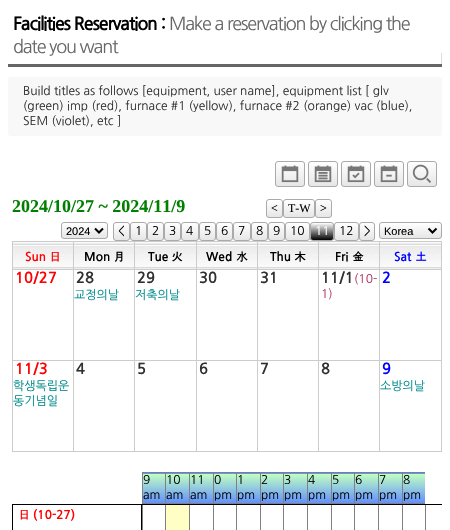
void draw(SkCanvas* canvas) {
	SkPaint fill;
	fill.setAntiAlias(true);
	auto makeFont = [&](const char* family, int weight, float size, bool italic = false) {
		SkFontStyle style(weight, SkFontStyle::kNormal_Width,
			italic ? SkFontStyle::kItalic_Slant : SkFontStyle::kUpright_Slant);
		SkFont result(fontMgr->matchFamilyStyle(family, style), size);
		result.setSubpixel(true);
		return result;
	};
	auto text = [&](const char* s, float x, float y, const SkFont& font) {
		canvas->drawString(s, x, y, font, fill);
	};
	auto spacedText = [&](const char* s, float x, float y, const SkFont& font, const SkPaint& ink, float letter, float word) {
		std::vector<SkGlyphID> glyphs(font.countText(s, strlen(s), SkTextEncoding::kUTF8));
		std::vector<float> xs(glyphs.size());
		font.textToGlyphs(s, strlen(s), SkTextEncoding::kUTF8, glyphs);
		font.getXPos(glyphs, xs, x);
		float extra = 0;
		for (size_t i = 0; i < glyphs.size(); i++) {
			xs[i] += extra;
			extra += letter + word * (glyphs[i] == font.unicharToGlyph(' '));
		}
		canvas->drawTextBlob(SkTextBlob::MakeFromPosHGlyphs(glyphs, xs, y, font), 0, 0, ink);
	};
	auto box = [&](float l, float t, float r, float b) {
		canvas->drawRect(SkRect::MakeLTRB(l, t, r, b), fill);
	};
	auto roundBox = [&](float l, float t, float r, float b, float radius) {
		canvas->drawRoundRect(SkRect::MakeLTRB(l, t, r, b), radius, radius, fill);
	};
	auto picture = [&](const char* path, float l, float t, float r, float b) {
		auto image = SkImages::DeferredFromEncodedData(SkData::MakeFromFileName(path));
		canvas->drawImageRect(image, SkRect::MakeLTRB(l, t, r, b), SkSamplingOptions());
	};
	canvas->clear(0xFFFFFFFF);
	fill.setColor(0xFFDDDDDD);
	box(441, 53, 442, 64);
	fill.setColor(0xFF666666);
	box(8, 64, 442, 67);
	fill.setColor(0xFFF8F8F8);
	roundBox(8, 77, 442, 136, 3);
	canvas->save();
	canvas->clipPath(SkPathBuilder().moveTo(278, 161).lineTo(302, 161).cubicTo(303.5f, 161, 305, 162.5f, 305, 164).lineTo(305, 184).cubicTo(305, 185.5f, 303.5f, 187, 302, 187).lineTo(278, 187).cubicTo(276.5f, 187, 275, 185.5f, 275, 184).lineTo(275, 164).cubicTo(275, 162.5f, 276.5f, 161, 278, 161).close().detach(), true);
	{
		const SkColor colors[] = {0xFFFFFFFF, 0xFFE6E6E6};
		const float stops[] = {0, 1};
		const SkPoint ends[] = {{290, 162}, {290, 186}};
		fill.setShader(SkGradientShader::MakeLinear(ends, colors, stops, 2, SkTileMode::kClamp));
		fill.setAlpha(255);
	}
	box(275, 162, 305, 186);
	canvas->restore();
	fill.setStyle(SkPaint::kStroke_Style);
	fill.setStrokeWidth(1);
	fill.setShader(nullptr);
	fill.setColor(0xFFAAAAAA);
	canvas->drawRoundRect(SkRect::MakeLTRB(275.5f, 161.5f, 304.5f, 186.5f), 2.5f, 2.5f, fill);
	picture("image0.png", 281, 165, 299, 183);
	canvas->save();
	canvas->clipPath(SkPathBuilder().moveTo(311, 161).lineTo(335, 161).cubicTo(336.5f, 161, 338, 162.5f, 338, 164).lineTo(338, 184).cubicTo(338, 185.5f, 336.5f, 187, 335, 187).lineTo(311, 187).cubicTo(309.5f, 187, 308, 185.5f, 308, 184).lineTo(308, 164).cubicTo(308, 162.5f, 309.5f, 161, 311, 161).close().detach(), true);
	fill.setStyle(SkPaint::kFill_Style);
	{
		const SkColor colors[] = {0xFFFFFFFF, 0xFFE6E6E6};
		const float stops[] = {0, 1};
		const SkPoint ends[] = {{323, 162}, {323, 186}};
		fill.setShader(SkGradientShader::MakeLinear(ends, colors, stops, 2, SkTileMode::kClamp));
		fill.setAlpha(255);
	}
	box(308, 162, 338, 186);
	canvas->restore();
	fill.setStyle(SkPaint::kStroke_Style);
	fill.setShader(nullptr);
	fill.setColor(0xFFAAAAAA);
	canvas->drawRoundRect(SkRect::MakeLTRB(308.5f, 161.5f, 337.5f, 186.5f), 2.5f, 2.5f, fill);
	picture("image1.png", 314, 165, 332, 183);
	canvas->save();
	canvas->clipPath(SkPathBuilder().moveTo(344, 161).lineTo(368, 161).cubicTo(369.5f, 161, 371, 162.5f, 371, 164).lineTo(371, 184).cubicTo(371, 185.5f, 369.5f, 187, 368, 187).lineTo(344, 187).cubicTo(342.5f, 187, 341, 185.5f, 341, 184).lineTo(341, 164).cubicTo(341, 162.5f, 342.5f, 161, 344, 161).close().detach(), true);
	fill.setStyle(SkPaint::kFill_Style);
	{
		const SkColor colors[] = {0xFFFFFFFF, 0xFFE6E6E6};
		const float stops[] = {0, 1};
		const SkPoint ends[] = {{356, 162}, {356, 186}};
		fill.setShader(SkGradientShader::MakeLinear(ends, colors, stops, 2, SkTileMode::kClamp));
		fill.setAlpha(255);
	}
	box(341, 162, 371, 186);
	canvas->restore();
	fill.setStyle(SkPaint::kStroke_Style);
	fill.setShader(nullptr);
	fill.setColor(0xFFAAAAAA);
	canvas->drawRoundRect(SkRect::MakeLTRB(341.5f, 161.5f, 370.5f, 186.5f), 2.5f, 2.5f, fill);
	picture("image2.png", 347, 165, 365, 183);
	canvas->save();
	canvas->clipPath(SkPathBuilder().moveTo(377, 161).lineTo(401, 161).cubicTo(402.5f, 161, 404, 162.5f, 404, 164).lineTo(404, 184).cubicTo(404, 185.5f, 402.5f, 187, 401, 187).lineTo(377, 187).cubicTo(375.5f, 187, 374, 185.5f, 374, 184).lineTo(374, 164).cubicTo(374, 162.5f, 375.5f, 161, 377, 161).close().detach(), true);
	fill.setStyle(SkPaint::kFill_Style);
	{
		const SkColor colors[] = {0xFFFFFFFF, 0xFFE6E6E6};
		const float stops[] = {0, 1};
		const SkPoint ends[] = {{389, 162}, {389, 186}};
		fill.setShader(SkGradientShader::MakeLinear(ends, colors, stops, 2, SkTileMode::kClamp));
		fill.setAlpha(255);
	}
	box(374, 162, 404, 186);
	canvas->restore();
	fill.setStyle(SkPaint::kStroke_Style);
	fill.setShader(nullptr);
	fill.setColor(0xFFAAAAAA);
	canvas->drawRoundRect(SkRect::MakeLTRB(374.5f, 161.5f, 403.5f, 186.5f), 2.5f, 2.5f, fill);
	picture("image3.png", 380, 165, 398, 183);
	canvas->save();
	canvas->clipPath(SkPathBuilder().moveTo(410, 161).lineTo(434, 161).cubicTo(435.5f, 161, 437, 162.5f, 437, 164).lineTo(437, 184).cubicTo(437, 185.5f, 435.5f, 187, 434, 187).lineTo(410, 187).cubicTo(408.5f, 187, 407, 185.5f, 407, 184).lineTo(407, 164).cubicTo(407, 162.5f, 408.5f, 161, 410, 161).close().detach(), true);
	fill.setStyle(SkPaint::kFill_Style);
	{
		const SkColor colors[] = {0xFFFFFFFF, 0xFFE6E6E6};
		const float stops[] = {0, 1};
		const SkPoint ends[] = {{422, 162}, {422, 186}};
		fill.setShader(SkGradientShader::MakeLinear(ends, colors, stops, 2, SkTileMode::kClamp));
		fill.setAlpha(255);
	}
	box(407, 162, 437, 186);
	canvas->restore();
	fill.setStyle(SkPaint::kStroke_Style);
	fill.setShader(nullptr);
	fill.setColor(0xFFAAAAAA);
	canvas->drawRoundRect(SkRect::MakeLTRB(407.5f, 161.5f, 436.5f, 186.5f), 2.5f, 2.5f, fill);
	picture("image4.png", 412, 164, 431, 183);
	canvas->save();
	canvas->clipPath(SkPathBuilder().moveTo(269, 199).lineTo(280, 199).cubicTo(281.5f, 199, 283, 200.5f, 283, 202).lineTo(283, 215).cubicTo(283, 216.5f, 281.5f, 218, 280, 218).lineTo(269, 218).cubicTo(267.5f, 218, 266, 216.5f, 266, 215).lineTo(266, 202).cubicTo(266, 200.5f, 267.5f, 199, 269, 199).close().detach(), true);
	fill.setStyle(SkPaint::kFill_Style);
	{
		const SkColor colors[] = {0xFFFFFFFF, 0xFFE6E6E6};
		const float stops[] = {0, 1};
		const SkPoint ends[] = {{275, 200}, {275, 217}};
		fill.setShader(SkGradientShader::MakeLinear(ends, colors, stops, 2, SkTileMode::kClamp));
		fill.setAlpha(255);
	}
	box(266, 200, 283, 217);
	canvas->restore();
	fill.setStyle(SkPaint::kStroke_Style);
	fill.setShader(nullptr);
	fill.setColor(0xFFAAAAAA);
	canvas->drawRoundRect(SkRect::MakeLTRB(266.5f, 199.5f, 282.5f, 217.5f), 2.5f, 2.5f, fill);
	canvas->save();
	canvas->clipPath(SkPathBuilder().moveTo(286, 199).lineTo(312, 199).cubicTo(313.5f, 199, 315, 200.5f, 315, 202).lineTo(315, 215).cubicTo(315, 216.5f, 313.5f, 218, 312, 218).lineTo(286, 218).cubicTo(284.5f, 218, 283, 216.5f, 283, 215).lineTo(283, 202).cubicTo(283, 200.5f, 284.5f, 199, 286, 199).close().detach(), true);
	fill.setStyle(SkPaint::kFill_Style);
	{
		const SkColor colors[] = {0xFFFFFFFF, 0xFFE6E6E6};
		const float stops[] = {0, 1};
		const SkPoint ends[] = {{299, 200}, {299, 217}};
		fill.setShader(SkGradientShader::MakeLinear(ends, colors, stops, 2, SkTileMode::kClamp));
		fill.setAlpha(255);
	}
	box(283, 200, 315, 217);
	canvas->restore();
	fill.setStyle(SkPaint::kStroke_Style);
	fill.setShader(nullptr);
	fill.setColor(0xFFAAAAAA);
	canvas->drawRoundRect(SkRect::MakeLTRB(283.5f, 199.5f, 314.5f, 217.5f), 2.5f, 2.5f, fill);
	canvas->save();
	canvas->clipPath(SkPathBuilder().moveTo(318, 199).lineTo(329, 199).cubicTo(330.5f, 199, 332, 200.5f, 332, 202).lineTo(332, 215).cubicTo(332, 216.5f, 330.5f, 218, 329, 218).lineTo(318, 218).cubicTo(316.5f, 218, 315, 216.5f, 315, 215).lineTo(315, 202).cubicTo(315, 200.5f, 316.5f, 199, 318, 199).close().detach(), true);
	fill.setStyle(SkPaint::kFill_Style);
	{
		const SkColor colors[] = {0xFFFFFFFF, 0xFFE6E6E6};
		const float stops[] = {0, 1};
		const SkPoint ends[] = {{324, 200}, {324, 217}};
		fill.setShader(SkGradientShader::MakeLinear(ends, colors, stops, 2, SkTileMode::kClamp));
		fill.setAlpha(255);
	}
	box(315, 200, 332, 217);
	canvas->restore();
	fill.setStyle(SkPaint::kStroke_Style);
	fill.setShader(nullptr);
	fill.setColor(0xFFAAAAAA);
	canvas->drawRoundRect(SkRect::MakeLTRB(315.5f, 199.5f, 331.5f, 217.5f), 2.5f, 2.5f, fill);
	canvas->save();
	canvas->clipPath(SkPathBuilder().moveTo(64, 222).lineTo(105, 222).cubicTo(106.5f, 222, 108, 223.5f, 108, 225).lineTo(108, 236).cubicTo(108, 237.5f, 106.5f, 239, 105, 239).lineTo(64, 239).cubicTo(62.5f, 239, 61, 237.5f, 61, 236).lineTo(61, 225).cubicTo(61, 223.5f, 62.5f, 222, 64, 222).close().detach(), true);
	fill.setStyle(SkPaint::kFill_Style);
	{
		const SkColor colors[] = {0xFFFFFFFF, 0xFFE6E6E6};
		const float stops[] = {0, 1};
		const SkPoint ends[] = {{85, 223}, {85, 238}};
		fill.setShader(SkGradientShader::MakeLinear(ends, colors, stops, 2, SkTileMode::kClamp));
		fill.setAlpha(255);
	}
	box(61, 223, 108, 238);
	canvas->restore();
	fill.setStyle(SkPaint::kStroke_Style);
	fill.setShader(nullptr);
	fill.setColor(0xFFAAAAAA);
	canvas->drawRoundRect(SkRect::MakeLTRB(61.5f, 222.5f, 107.5f, 238.5f), 2.5f, 2.5f, fill);
	fill.setStrokeWidth(2);
	fill.setColor(0xFF000000);
	canvas->drawPath(SkPathBuilder().moveTo(95, 228.5f).lineTo(99, 232.5f).lineTo(103, 228.5f).detach(), fill);
	canvas->save();
	canvas->clipPath(SkPathBuilder().moveTo(116, 222).lineTo(127, 222).cubicTo(128.5f, 222, 130, 223.5f, 130, 225).lineTo(130, 238).cubicTo(130, 239.5f, 128.5f, 241, 127, 241).lineTo(116, 241).cubicTo(114.5f, 241, 113, 239.5f, 113, 238).lineTo(113, 225).cubicTo(113, 223.5f, 114.5f, 222, 116, 222).close().detach(), true);
	fill.setStyle(SkPaint::kFill_Style);
	{
		const SkColor colors[] = {0xFFFFFFFF, 0xFFE6E6E6};
		const float stops[] = {0, 1};
		const SkPoint ends[] = {{122, 223}, {122, 240}};
		fill.setShader(SkGradientShader::MakeLinear(ends, colors, stops, 2, SkTileMode::kClamp));
		fill.setAlpha(255);
	}
	box(113, 223, 130, 240);
	canvas->restore();
	fill.setStyle(SkPaint::kStroke_Style);
	fill.setStrokeWidth(1);
	fill.setShader(nullptr);
	fill.setColor(0xFFAAAAAA);
	canvas->drawRoundRect(SkRect::MakeLTRB(113.5f, 222.5f, 129.5f, 240.5f), 2.5f, 2.5f, fill);
	canvas->save();
	canvas->clipPath(SkPathBuilder().moveTo(133, 222).lineTo(144, 222).cubicTo(145.5f, 222, 147, 223.5f, 147, 225).lineTo(147, 238).cubicTo(147, 239.5f, 145.5f, 241, 144, 241).lineTo(133, 241).cubicTo(131.5f, 241, 130, 239.5f, 130, 238).lineTo(130, 225).cubicTo(130, 223.5f, 131.5f, 222, 133, 222).close().detach(), true);
	fill.setStyle(SkPaint::kFill_Style);
	{
		const SkColor colors[] = {0xFFFFFFFF, 0xFFE6E6E6};
		const float stops[] = {0, 1};
		const SkPoint ends[] = {{139, 223}, {139, 240}};
		fill.setShader(SkGradientShader::MakeLinear(ends, colors, stops, 2, SkTileMode::kClamp));
		fill.setAlpha(255);
	}
	box(130, 223, 147, 240);
	canvas->restore();
	fill.setStyle(SkPaint::kStroke_Style);
	fill.setShader(nullptr);
	fill.setColor(0xFFAAAAAA);
	canvas->drawRoundRect(SkRect::MakeLTRB(130.5f, 222.5f, 146.5f, 240.5f), 2.5f, 2.5f, fill);
	canvas->save();
	canvas->clipPath(SkPathBuilder().moveTo(150, 222).lineTo(161, 222).cubicTo(162.5f, 222, 164, 223.5f, 164, 225).lineTo(164, 238).cubicTo(164, 239.5f, 162.5f, 241, 161, 241).lineTo(150, 241).cubicTo(148.5f, 241, 147, 239.5f, 147, 238).lineTo(147, 225).cubicTo(147, 223.5f, 148.5f, 222, 150, 222).close().detach(), true);
	fill.setStyle(SkPaint::kFill_Style);
	{
		const SkColor colors[] = {0xFFFFFFFF, 0xFFE6E6E6};
		const float stops[] = {0, 1};
		const SkPoint ends[] = {{156, 223}, {156, 240}};
		fill.setShader(SkGradientShader::MakeLinear(ends, colors, stops, 2, SkTileMode::kClamp));
		fill.setAlpha(255);
	}
	box(147, 223, 164, 240);
	canvas->restore();
	fill.setStyle(SkPaint::kStroke_Style);
	fill.setShader(nullptr);
	fill.setColor(0xFFAAAAAA);
	canvas->drawRoundRect(SkRect::MakeLTRB(147.5f, 222.5f, 163.5f, 240.5f), 2.5f, 2.5f, fill);
	canvas->save();
	canvas->clipPath(SkPathBuilder().moveTo(167, 222).lineTo(178, 222).cubicTo(179.5f, 222, 181, 223.5f, 181, 225).lineTo(181, 238).cubicTo(181, 239.5f, 179.5f, 241, 178, 241).lineTo(167, 241).cubicTo(165.5f, 241, 164, 239.5f, 164, 238).lineTo(164, 225).cubicTo(164, 223.5f, 165.5f, 222, 167, 222).close().detach(), true);
	fill.setStyle(SkPaint::kFill_Style);
	{
		const SkColor colors[] = {0xFFFFFFFF, 0xFFE6E6E6};
		const float stops[] = {0, 1};
		const SkPoint ends[] = {{173, 223}, {173, 240}};
		fill.setShader(SkGradientShader::MakeLinear(ends, colors, stops, 2, SkTileMode::kClamp));
		fill.setAlpha(255);
	}
	box(164, 223, 181, 240);
	canvas->restore();
	fill.setStyle(SkPaint::kStroke_Style);
	fill.setShader(nullptr);
	fill.setColor(0xFFAAAAAA);
	canvas->drawRoundRect(SkRect::MakeLTRB(164.5f, 222.5f, 180.5f, 240.5f), 2.5f, 2.5f, fill);
	canvas->save();
	canvas->clipPath(SkPathBuilder().moveTo(184, 222).lineTo(196, 222).cubicTo(197.5f, 222, 199, 223.5f, 199, 225).lineTo(199, 238).cubicTo(199, 239.5f, 197.5f, 241, 196, 241).lineTo(184, 241).cubicTo(182.5f, 241, 181, 239.5f, 181, 238).lineTo(181, 225).cubicTo(181, 223.5f, 182.5f, 222, 184, 222).close().detach(), true);
	fill.setStyle(SkPaint::kFill_Style);
	{
		const SkColor colors[] = {0xFFFFFFFF, 0xFFE6E6E6};
		const float stops[] = {0, 1};
		const SkPoint ends[] = {{190, 223}, {190, 240}};
		fill.setShader(SkGradientShader::MakeLinear(ends, colors, stops, 2, SkTileMode::kClamp));
		fill.setAlpha(255);
	}
	box(181, 223, 199, 240);
	canvas->restore();
	fill.setStyle(SkPaint::kStroke_Style);
	fill.setShader(nullptr);
	fill.setColor(0xFFAAAAAA);
	canvas->drawRoundRect(SkRect::MakeLTRB(181.5f, 222.5f, 198.5f, 240.5f), 2.5f, 2.5f, fill);
	canvas->save();
	canvas->clipPath(SkPathBuilder().moveTo(202, 222).lineTo(213, 222).cubicTo(214.5f, 222, 216, 223.5f, 216, 225).lineTo(216, 238).cubicTo(216, 239.5f, 214.5f, 241, 213, 241).lineTo(202, 241).cubicTo(200.5f, 241, 199, 239.5f, 199, 238).lineTo(199, 225).cubicTo(199, 223.5f, 200.5f, 222, 202, 222).close().detach(), true);
	fill.setStyle(SkPaint::kFill_Style);
	{
		const SkColor colors[] = {0xFFFFFFFF, 0xFFE6E6E6};
		const float stops[] = {0, 1};
		const SkPoint ends[] = {{208, 223}, {208, 240}};
		fill.setShader(SkGradientShader::MakeLinear(ends, colors, stops, 2, SkTileMode::kClamp));
		fill.setAlpha(255);
	}
	box(199, 223, 216, 240);
	canvas->restore();
	fill.setStyle(SkPaint::kStroke_Style);
	fill.setShader(nullptr);
	fill.setColor(0xFFAAAAAA);
	canvas->drawRoundRect(SkRect::MakeLTRB(199.5f, 222.5f, 215.5f, 240.5f), 2.5f, 2.5f, fill);
	canvas->save();
	canvas->clipPath(SkPathBuilder().moveTo(219, 222).lineTo(230, 222).cubicTo(231.5f, 222, 233, 223.5f, 233, 225).lineTo(233, 238).cubicTo(233, 239.5f, 231.5f, 241, 230, 241).lineTo(219, 241).cubicTo(217.5f, 241, 216, 239.5f, 216, 238).lineTo(216, 225).cubicTo(216, 223.5f, 217.5f, 222, 219, 222).close().detach(), true);
	fill.setStyle(SkPaint::kFill_Style);
	{
		const SkColor colors[] = {0xFFFFFFFF, 0xFFE6E6E6};
		const float stops[] = {0, 1};
		const SkPoint ends[] = {{225, 223}, {225, 240}};
		fill.setShader(SkGradientShader::MakeLinear(ends, colors, stops, 2, SkTileMode::kClamp));
		fill.setAlpha(255);
	}
	box(216, 223, 233, 240);
	canvas->restore();
	fill.setStyle(SkPaint::kStroke_Style);
	fill.setShader(nullptr);
	fill.setColor(0xFFAAAAAA);
	canvas->drawRoundRect(SkRect::MakeLTRB(216.5f, 222.5f, 232.5f, 240.5f), 2.5f, 2.5f, fill);
	canvas->save();
	canvas->clipPath(SkPathBuilder().moveTo(236, 222).lineTo(248, 222).cubicTo(249.5f, 222, 251, 223.5f, 251, 225).lineTo(251, 238).cubicTo(251, 239.5f, 249.5f, 241, 248, 241).lineTo(236, 241).cubicTo(234.5f, 241, 233, 239.5f, 233, 238).lineTo(233, 225).cubicTo(233, 223.5f, 234.5f, 222, 236, 222).close().detach(), true);
	fill.setStyle(SkPaint::kFill_Style);
	{
		const SkColor colors[] = {0xFFFFFFFF, 0xFFE6E6E6};
		const float stops[] = {0, 1};
		const SkPoint ends[] = {{242, 223}, {242, 240}};
		fill.setShader(SkGradientShader::MakeLinear(ends, colors, stops, 2, SkTileMode::kClamp));
		fill.setAlpha(255);
	}
	box(233, 223, 251, 240);
	canvas->restore();
	fill.setStyle(SkPaint::kStroke_Style);
	fill.setShader(nullptr);
	fill.setColor(0xFFAAAAAA);
	canvas->drawRoundRect(SkRect::MakeLTRB(233.5f, 222.5f, 250.5f, 240.5f), 2.5f, 2.5f, fill);
	canvas->save();
	canvas->clipPath(SkPathBuilder().moveTo(254, 222).lineTo(265, 222).cubicTo(266.5f, 222, 268, 223.5f, 268, 225).lineTo(268, 238).cubicTo(268, 239.5f, 266.5f, 241, 265, 241).lineTo(254, 241).cubicTo(252.5f, 241, 251, 239.5f, 251, 238).lineTo(251, 225).cubicTo(251, 223.5f, 252.5f, 222, 254, 222).close().detach(), true);
	fill.setStyle(SkPaint::kFill_Style);
	{
		const SkColor colors[] = {0xFFFFFFFF, 0xFFE6E6E6};
		const float stops[] = {0, 1};
		const SkPoint ends[] = {{260, 223}, {260, 240}};
		fill.setShader(SkGradientShader::MakeLinear(ends, colors, stops, 2, SkTileMode::kClamp));
		fill.setAlpha(255);
	}
	box(251, 223, 268, 240);
	canvas->restore();
	fill.setStyle(SkPaint::kStroke_Style);
	fill.setShader(nullptr);
	fill.setColor(0xFFAAAAAA);
	canvas->drawRoundRect(SkRect::MakeLTRB(251.5f, 222.5f, 267.5f, 240.5f), 2.5f, 2.5f, fill);
	canvas->save();
	canvas->clipPath(SkPathBuilder().moveTo(271, 222).lineTo(282, 222).cubicTo(283.5f, 222, 285, 223.5f, 285, 225).lineTo(285, 238).cubicTo(285, 239.5f, 283.5f, 241, 282, 241).lineTo(271, 241).cubicTo(269.5f, 241, 268, 239.5f, 268, 238).lineTo(268, 225).cubicTo(268, 223.5f, 269.5f, 222, 271, 222).close().detach(), true);
	fill.setStyle(SkPaint::kFill_Style);
	{
		const SkColor colors[] = {0xFFFFFFFF, 0xFFE6E6E6};
		const float stops[] = {0, 1};
		const SkPoint ends[] = {{277, 223}, {277, 240}};
		fill.setShader(SkGradientShader::MakeLinear(ends, colors, stops, 2, SkTileMode::kClamp));
		fill.setAlpha(255);
	}
	box(268, 223, 285, 240);
	canvas->restore();
	fill.setStyle(SkPaint::kStroke_Style);
	fill.setShader(nullptr);
	fill.setColor(0xFFAAAAAA);
	canvas->drawRoundRect(SkRect::MakeLTRB(268.5f, 222.5f, 284.5f, 240.5f), 2.5f, 2.5f, fill);
	canvas->save();
	canvas->clipPath(SkPathBuilder().moveTo(288, 222).lineTo(307, 222).cubicTo(308.5f, 222, 310, 223.5f, 310, 225).lineTo(310, 238).cubicTo(310, 239.5f, 308.5f, 241, 307, 241).lineTo(288, 241).cubicTo(286.5f, 241, 285, 239.5f, 285, 238).lineTo(285, 225).cubicTo(285, 223.5f, 286.5f, 222, 288, 222).close().detach(), true);
	fill.setStyle(SkPaint::kFill_Style);
	{
		const SkColor colors[] = {0xFFFFFFFF, 0xFFE6E6E6};
		const float stops[] = {0, 1};
		const SkPoint ends[] = {{298, 223}, {298, 240}};
		fill.setShader(SkGradientShader::MakeLinear(ends, colors, stops, 2, SkTileMode::kClamp));
		fill.setAlpha(255);
	}
	box(285, 223, 310, 240);
	canvas->restore();
	fill.setStyle(SkPaint::kStroke_Style);
	fill.setShader(nullptr);
	fill.setColor(0xFFAAAAAA);
	canvas->drawRoundRect(SkRect::MakeLTRB(285.5f, 222.5f, 309.5f, 240.5f), 2.5f, 2.5f, fill);
	canvas->save();
	canvas->clipPath(SkPathBuilder().moveTo(313, 222).lineTo(331, 222).cubicTo(332.5f, 222, 334, 223.5f, 334, 225).lineTo(334, 238).cubicTo(334, 239.5f, 332.5f, 241, 331, 241).lineTo(313, 241).cubicTo(311.5f, 241, 310, 239.5f, 310, 238).lineTo(310, 225).cubicTo(310, 223.5f, 311.5f, 222, 313, 222).close().detach(), true);
	fill.setStyle(SkPaint::kFill_Style);
	{
		const SkColor colors[] = {0xFFFFFFFF, 0xFF000000};
		const float stops[] = {0, 1};
		const SkPoint ends[] = {{322, 223}, {322, 240}};
		fill.setShader(SkGradientShader::MakeLinear(ends, colors, stops, 2, SkTileMode::kClamp));
		fill.setAlpha(255);
	}
	box(310, 223, 334, 240);
	canvas->restore();
	fill.setStyle(SkPaint::kStroke_Style);
	fill.setShader(nullptr);
	fill.setColor(0xFFAAAAAA);
	canvas->drawRoundRect(SkRect::MakeLTRB(310.5f, 222.5f, 333.5f, 240.5f), 2.5f, 2.5f, fill);
	canvas->save();
	canvas->clipPath(SkPathBuilder().moveTo(337, 222).lineTo(356, 222).cubicTo(357.5f, 222, 359, 223.5f, 359, 225).lineTo(359, 238).cubicTo(359, 239.5f, 357.5f, 241, 356, 241).lineTo(337, 241).cubicTo(335.5f, 241, 334, 239.5f, 334, 238).lineTo(334, 225).cubicTo(334, 223.5f, 335.5f, 222, 337, 222).close().detach(), true);
	fill.setStyle(SkPaint::kFill_Style);
	{
		const SkColor colors[] = {0xFFFFFFFF, 0xFFE6E6E6};
		const float stops[] = {0, 1};
		const SkPoint ends[] = {{347, 223}, {347, 240}};
		fill.setShader(SkGradientShader::MakeLinear(ends, colors, stops, 2, SkTileMode::kClamp));
		fill.setAlpha(255);
	}
	box(334, 223, 359, 240);
	canvas->restore();
	fill.setStyle(SkPaint::kStroke_Style);
	fill.setShader(nullptr);
	fill.setColor(0xFFAAAAAA);
	canvas->drawRoundRect(SkRect::MakeLTRB(334.5f, 222.5f, 358.5f, 240.5f), 2.5f, 2.5f, fill);
	canvas->save();
	canvas->clipPath(SkPathBuilder().moveTo(362, 222).lineTo(372, 222).cubicTo(373.5f, 222, 375, 223.5f, 375, 225).lineTo(375, 238).cubicTo(375, 239.5f, 373.5f, 241, 372, 241).lineTo(362, 241).cubicTo(360.5f, 241, 359, 239.5f, 359, 238).lineTo(359, 225).cubicTo(359, 223.5f, 360.5f, 222, 362, 222).close().detach(), true);
	fill.setStyle(SkPaint::kFill_Style);
	{
		const SkColor colors[] = {0xFFFFFFFF, 0xFFE6E6E6};
		const float stops[] = {0, 1};
		const SkPoint ends[] = {{367, 223}, {367, 240}};
		fill.setShader(SkGradientShader::MakeLinear(ends, colors, stops, 2, SkTileMode::kClamp));
		fill.setAlpha(255);
	}
	box(359, 223, 375, 240);
	canvas->restore();
	fill.setStyle(SkPaint::kStroke_Style);
	fill.setShader(nullptr);
	fill.setColor(0xFFAAAAAA);
	canvas->drawRoundRect(SkRect::MakeLTRB(359.5f, 222.5f, 374.5f, 240.5f), 2.5f, 2.5f, fill);
	canvas->save();
	canvas->clipPath(SkPathBuilder().moveTo(382, 222).lineTo(439, 222).cubicTo(440.5f, 222, 442, 223.5f, 442, 225).lineTo(442, 236).cubicTo(442, 237.5f, 440.5f, 239, 439, 239).lineTo(382, 239).cubicTo(380.5f, 239, 379, 237.5f, 379, 236).lineTo(379, 225).cubicTo(379, 223.5f, 380.5f, 222, 382, 222).close().detach(), true);
	fill.setStyle(SkPaint::kFill_Style);
	{
		const SkColor colors[] = {0xFFFFFFFF, 0xFFE6E6E6};
		const float stops[] = {0, 1};
		const SkPoint ends[] = {{411, 223}, {411, 238}};
		fill.setShader(SkGradientShader::MakeLinear(ends, colors, stops, 2, SkTileMode::kClamp));
		fill.setAlpha(255);
	}
	box(379, 223, 442, 238);
	canvas->restore();
	fill.setStyle(SkPaint::kStroke_Style);
	fill.setShader(nullptr);
	fill.setColor(0xFFAAAAAA);
	canvas->drawRoundRect(SkRect::MakeLTRB(379.5f, 222.5f, 441.5f, 238.5f), 2.5f, 2.5f, fill);
	fill.setStrokeWidth(2);
	fill.setColor(0xFF000000);
	canvas->drawPath(SkPathBuilder().moveTo(428.5f, 228.5f).lineTo(432.5f, 232.5f).lineTo(436.5f, 228.5f).detach(), fill);
	picture("image5.png", 13, 242, 73, 269);
	fill.setStyle(SkPaint::kFill_Style);
	fill.setColor(0xFFCCCCCC);
	box(379, 241, 442, 242);
	box(379, 269, 442, 270);
	box(379, 360, 442, 361);
	box(441, 360, 442, 452);
	box(379, 451, 442, 452);
	box(379, 360, 380, 452);
	box(318, 360, 380, 361);
	box(379, 269, 380, 361);
	box(318, 269, 380, 270);
	box(379, 241, 380, 270);
	box(318, 241, 380, 242);
	box(318, 451, 380, 452);
	box(318, 360, 319, 452);
	box(257, 360, 319, 361);
	box(318, 269, 319, 361);
	box(257, 269, 319, 270);
	box(318, 241, 319, 270);
	box(257, 241, 319, 242);
	box(257, 451, 319, 452);
	box(257, 360, 258, 452);
	box(196, 360, 258, 361);
	box(257, 269, 258, 361);
	box(196, 269, 258, 270);
	box(257, 241, 258, 270);
	box(196, 241, 258, 242);
	box(196, 451, 258, 452);
	box(196, 360, 197, 452);
	box(134, 360, 197, 361);
	box(196, 269, 197, 361);
	box(134, 269, 197, 270);
	box(196, 241, 197, 270);
	box(134, 241, 197, 242);
	box(134, 451, 197, 452);
	box(134, 360, 135, 452);
	box(73, 360, 135, 361);
	box(134, 269, 135, 361);
	box(73, 269, 135, 270);
	box(134, 241, 135, 270);
	box(73, 241, 135, 242);
	box(73, 451, 135, 452);
	box(73, 360, 74, 452);
	box(12, 360, 74, 361);
	box(73, 269, 74, 361);
	box(12, 269, 74, 270);
	box(73, 241, 74, 270);
	box(12, 241, 74, 242);
	box(12, 451, 74, 452);
	box(12, 360, 13, 452);
	box(12, 269, 13, 361);
	box(12, 241, 13, 270);
	picture("image5.png", 74, 242, 134, 269);
	picture("image6.png", 135, 242, 196, 269);
	picture("image7.png", 197, 242, 257, 269);
	picture("image7.png", 258, 242, 318, 269);
	picture("image5.png", 319, 242, 379, 269);
	picture("image6.png", 380, 242, 441, 269);
	box(441, 269, 442, 361);
	box(441, 241, 442, 270);
	{
		const SkColor colors[] = {0xFFC1FFC1, 0xFF6191FF};
		const float stops[] = {0, 1};
		const SkPoint ends[] = {{143, 445}, {143, 474}};
		fill.setShader(SkGradientShader::MakeLinear(ends, colors, stops, 2, SkTileMode::kClamp));
		fill.setAlpha(255);
	}
	box(142, 473, 166, 474);
	{
		const SkColor colors[] = {0xFFC1FFC1, 0xFF6191FF};
		const float stops[] = {0, 1};
		const SkPoint ends[] = {{143, 474}, {143, 503}};
		fill.setShader(SkGradientShader::MakeLinear(ends, colors, stops, 2, SkTileMode::kClamp));
		fill.setAlpha(255);
	}
	box(143, 474, 165, 503);
	fill.setShader(nullptr);
	fill.setColor(0xFF808080);
	box(402, 472, 425, 473);
	{
		const SkColor colors[] = {0xFFC1FFC1, 0xFF6191FF};
		const float stops[] = {0, 1};
		const SkPoint ends[] = {{403, 445}, {403, 474}};
		fill.setShader(SkGradientShader::MakeLinear(ends, colors, stops, 2, SkTileMode::kClamp));
		fill.setAlpha(255);
	}
	box(402, 473, 425, 474);
	fill.setShader(nullptr);
	fill.setColor(0xFF808080);
	box(402, 503, 425, 504);
	box(402, 472, 403, 530);
	box(378, 472, 403, 473);
	{
		const SkColor colors[] = {0xFFC1FFC1, 0xFF6191FF};
		const float stops[] = {0, 1};
		const SkPoint ends[] = {{379, 445}, {379, 474}};
		fill.setShader(SkGradientShader::MakeLinear(ends, colors, stops, 2, SkTileMode::kClamp));
		fill.setAlpha(255);
	}
	box(378, 473, 402, 474);
	fill.setShader(nullptr);
	fill.setColor(0xFF808080);
	box(378, 503, 403, 504);
	box(378, 472, 379, 530);
	box(354, 472, 379, 473);
	{
		const SkColor colors[] = {0xFFC1FFC1, 0xFF6191FF};
		const float stops[] = {0, 1};
		const SkPoint ends[] = {{332, 445}, {332, 474}};
		fill.setShader(SkGradientShader::MakeLinear(ends, colors, stops, 2, SkTileMode::kClamp));
		fill.setAlpha(255);
	}
	box(331, 473, 355, 474);
	fill.setShader(nullptr);
	fill.setColor(0xFF808080);
	box(354, 503, 379, 504);
	box(354, 472, 355, 530);
	box(331, 472, 355, 473);
	box(331, 503, 355, 504);
	box(331, 472, 332, 530);
	box(307, 472, 332, 473);
	{
		const SkColor colors[] = {0xFFC1FFC1, 0xFF6191FF};
		const float stops[] = {0, 1};
		const SkPoint ends[] = {{285, 445}, {285, 474}};
		fill.setShader(SkGradientShader::MakeLinear(ends, colors, stops, 2, SkTileMode::kClamp));
		fill.setAlpha(255);
	}
	box(284, 473, 308, 474);
	fill.setShader(nullptr);
	fill.setColor(0xFF808080);
	box(307, 503, 332, 504);
	box(307, 472, 308, 530);
	box(283, 472, 308, 473);
	{
		const SkColor colors[] = {0xFFC1FFC1, 0xFF6191FF};
		const float stops[] = {0, 1};
		const SkPoint ends[] = {{261, 445}, {261, 474}};
		fill.setShader(SkGradientShader::MakeLinear(ends, colors, stops, 2, SkTileMode::kClamp));
		fill.setAlpha(255);
	}
	box(260, 473, 284, 474);
	fill.setShader(nullptr);
	fill.setColor(0xFF808080);
	box(283, 503, 308, 504);
	box(283, 472, 284, 530);
	box(260, 472, 284, 473);
	box(260, 503, 284, 504);
	box(260, 472, 261, 530);
	box(236, 472, 261, 473);
	{
		const SkColor colors[] = {0xFFC1FFC1, 0xFF6191FF};
		const float stops[] = {0, 1};
		const SkPoint ends[] = {{214, 445}, {214, 474}};
		fill.setShader(SkGradientShader::MakeLinear(ends, colors, stops, 2, SkTileMode::kClamp));
		fill.setAlpha(255);
	}
	box(213, 473, 237, 474);
	fill.setShader(nullptr);
	fill.setColor(0xFF808080);
	box(236, 503, 261, 504);
	box(236, 472, 237, 530);
	box(213, 472, 237, 473);
	box(213, 503, 237, 504);
	box(213, 472, 214, 530);
	box(189, 472, 214, 473);
	{
		const SkColor colors[] = {0xFFC1FFC1, 0xFF6191FF};
		const float stops[] = {0, 1};
		const SkPoint ends[] = {{190, 445}, {190, 474}};
		fill.setShader(SkGradientShader::MakeLinear(ends, colors, stops, 2, SkTileMode::kClamp));
		fill.setAlpha(255);
	}
	box(189, 473, 213, 474);
	fill.setShader(nullptr);
	fill.setColor(0xFF808080);
	box(189, 503, 214, 504);
	box(189, 472, 190, 530);
	box(165, 472, 190, 473);
	box(165, 503, 190, 504);
	box(165, 472, 166, 530);
	box(142, 472, 166, 473);
	box(142, 503, 166, 504);
	box(142, 472, 143, 530);
	{
		const SkColor colors[] = {0xFFC1FFC1, 0xFF6191FF};
		const float stops[] = {0, 1};
		const SkPoint ends[] = {{167, 445}, {167, 474}};
		fill.setShader(SkGradientShader::MakeLinear(ends, colors, stops, 2, SkTileMode::kClamp));
		fill.setAlpha(255);
	}
	box(166, 473, 189, 474);
	{
		const SkColor colors[] = {0xFFC1FFC1, 0xFF6191FF};
		const float stops[] = {0, 1};
		const SkPoint ends[] = {{167, 474}, {167, 503}};
		fill.setShader(SkGradientShader::MakeLinear(ends, colors, stops, 2, SkTileMode::kClamp));
		fill.setAlpha(255);
	}
	box(166, 474, 189, 503);
	{
		const SkColor colors[] = {0xFFC1FFC1, 0xFF6191FF};
		const float stops[] = {0, 1};
		const SkPoint ends[] = {{190, 474}, {190, 503}};
		fill.setShader(SkGradientShader::MakeLinear(ends, colors, stops, 2, SkTileMode::kClamp));
		fill.setAlpha(255);
	}
	box(190, 474, 213, 503);
	{
		const SkColor colors[] = {0xFFC1FFC1, 0xFF6191FF};
		const float stops[] = {0, 1};
		const SkPoint ends[] = {{214, 474}, {214, 503}};
		fill.setShader(SkGradientShader::MakeLinear(ends, colors, stops, 2, SkTileMode::kClamp));
		fill.setAlpha(255);
	}
	box(214, 474, 236, 503);
	{
		const SkColor colors[] = {0xFFC1FFC1, 0xFF6191FF};
		const float stops[] = {0, 1};
		const SkPoint ends[] = {{238, 445}, {238, 474}};
		fill.setShader(SkGradientShader::MakeLinear(ends, colors, stops, 2, SkTileMode::kClamp));
		fill.setAlpha(255);
	}
	box(237, 473, 260, 474);
	{
		const SkColor colors[] = {0xFFC1FFC1, 0xFF6191FF};
		const float stops[] = {0, 1};
		const SkPoint ends[] = {{238, 474}, {238, 503}};
		fill.setShader(SkGradientShader::MakeLinear(ends, colors, stops, 2, SkTileMode::kClamp));
		fill.setAlpha(255);
	}
	box(237, 474, 260, 503);
	{
		const SkColor colors[] = {0xFFC1FFC1, 0xFF6191FF};
		const float stops[] = {0, 1};
		const SkPoint ends[] = {{261, 474}, {261, 503}};
		fill.setShader(SkGradientShader::MakeLinear(ends, colors, stops, 2, SkTileMode::kClamp));
		fill.setAlpha(255);
	}
	box(261, 474, 283, 503);
	{
		const SkColor colors[] = {0xFFC1FFC1, 0xFF6191FF};
		const float stops[] = {0, 1};
		const SkPoint ends[] = {{285, 474}, {285, 503}};
		fill.setShader(SkGradientShader::MakeLinear(ends, colors, stops, 2, SkTileMode::kClamp));
		fill.setAlpha(255);
	}
	box(284, 474, 307, 503);
	{
		const SkColor colors[] = {0xFFC1FFC1, 0xFF6191FF};
		const float stops[] = {0, 1};
		const SkPoint ends[] = {{309, 445}, {309, 474}};
		fill.setShader(SkGradientShader::MakeLinear(ends, colors, stops, 2, SkTileMode::kClamp));
		fill.setAlpha(255);
	}
	box(308, 473, 331, 474);
	{
		const SkColor colors[] = {0xFFC1FFC1, 0xFF6191FF};
		const float stops[] = {0, 1};
		const SkPoint ends[] = {{309, 474}, {309, 503}};
		fill.setShader(SkGradientShader::MakeLinear(ends, colors, stops, 2, SkTileMode::kClamp));
		fill.setAlpha(255);
	}
	box(308, 474, 331, 503);
	{
		const SkColor colors[] = {0xFFC1FFC1, 0xFF6191FF};
		const float stops[] = {0, 1};
		const SkPoint ends[] = {{332, 474}, {332, 503}};
		fill.setShader(SkGradientShader::MakeLinear(ends, colors, stops, 2, SkTileMode::kClamp));
		fill.setAlpha(255);
	}
	box(332, 474, 354, 503);
	{
		const SkColor colors[] = {0xFFC1FFC1, 0xFF6191FF};
		const float stops[] = {0, 1};
		const SkPoint ends[] = {{356, 445}, {356, 474}};
		fill.setShader(SkGradientShader::MakeLinear(ends, colors, stops, 2, SkTileMode::kClamp));
		fill.setAlpha(255);
	}
	box(355, 473, 378, 474);
	{
		const SkColor colors[] = {0xFFC1FFC1, 0xFF6191FF};
		const float stops[] = {0, 1};
		const SkPoint ends[] = {{356, 474}, {356, 503}};
		fill.setShader(SkGradientShader::MakeLinear(ends, colors, stops, 2, SkTileMode::kClamp));
		fill.setAlpha(255);
	}
	box(355, 474, 378, 503);
	{
		const SkColor colors[] = {0xFFC1FFC1, 0xFF6191FF};
		const float stops[] = {0, 1};
		const SkPoint ends[] = {{379, 474}, {379, 503}};
		fill.setShader(SkGradientShader::MakeLinear(ends, colors, stops, 2, SkTileMode::kClamp));
		fill.setAlpha(255);
	}
	box(379, 474, 402, 503);
	{
		const SkColor colors[] = {0xFFC1FFC1, 0xFF6191FF};
		const float stops[] = {0, 1};
		const SkPoint ends[] = {{403, 474}, {403, 503}};
		fill.setShader(SkGradientShader::MakeLinear(ends, colors, stops, 2, SkTileMode::kClamp));
		fill.setAlpha(255);
	}
	box(403, 474, 425, 503);
	fill.setShader(nullptr);
	fill.setColor(0xFF000000);
	box(12, 504, 142, 505);
	box(141, 504, 142, 530);
	box(12, 504, 13, 530);
	fill.setColor(0xFF808080);
	box(425, 504, 426, 530);
	fill.setColor(0xFF000000);
	box(142, 504, 442, 505);
	fill.setColor(0xFFFFFEC5);
	box(166, 505, 189, 530);
	auto font1 = makeFont("NanumGothic", 700, 18);
	fill.setColor(0xFF000000);
	spacedText("Facilities Reservation :", 13, 30, font1, fill, -1.2f, 0);
	auto font2 = makeFont("NanumGothic", 400, 18);
	fill.setColor(0xFF666666);
	spacedText("Make a reservation by clicking the", 169, 30, font2, fill, -1.2f, 0);
	spacedText("date you want", 13, 53, font2, fill, -1.2f, 0);
	auto font3 = makeFont("NanumGothic", 400, 12);
	fill.setColor(0xFF303030);
	text("Build titles as follows [equipment, user name], equipment list [ glv", 23, 95, font3);
	text("(green) imp (red), furnace #1 (yellow), furnace #2 (orange) vac (blue),", 23, 110, font3);
	text("SEM (violet), etc ]", 23, 125, font3);
	auto font4 = makeFont("Liberation Serif", 700, 18);
	fill.setColor(0xFF008000);
	text("2024/10/27 ~ 2024/11/9", 12, 212, font4);
	auto font5 = makeFont("Liberation Serif", 400, 12);
	fill.setColor(0xFF000000);
	text("<", 271, 212, font5);
	text("T-W", 288, 212, font5);
	text(">", 320, 212, font5);
	auto font6 = makeFont("Liberation Sans", 400, 11);
	text("2024", 66, 235, font6);
	text("<", 118, 235, font3);
	text("1", 135, 235, font3);
	text("2", 152, 235, font3);
	text("3", 169, 235, font3);
	text("4", 186, 235, font3);
	text("5", 204, 235, font3);
	text("6", 221, 235, font3);
	text("7", 238, 235, font3);
	text("8", 256, 235, font3);
	text("9", 273, 235, font3);
	text("10", 290, 235, font3);
	fill.setColor(0xFFFFFFFF);
	text("11", 315, 235, font3);
	fill.setColor(0xFF000000);
	text("12", 339, 235, font3);
	text(">", 364, 235, font3);
	text("Korea", 384, 235, font6);
	auto font7 = makeFont("NanumGothic", 700, 12);
	fill.setColor(0xFFFF0000);
	text("Sun", 25, 261, font7);
	auto font8 = makeFont("Dotum", 700, 12);
	text("日", 49, 261, font8);
	fill.setColor(0xFF000000);
	text("Mon", 84, 261, font7);
	text("月", 113, 261, font8);
	text("Tue", 148, 261, font7);
	text("火", 171, 261, font8);
	text("Wed", 206, 261, font7);
	text("水", 236, 261, font8);
	text("Thu", 270, 261, font7);
	text("木", 294, 261, font8);
	text("Fri", 335, 261, font7);
	text("金", 352, 261, font8);
	fill.setColor(0xFF0000FF);
	text("Sat", 394, 261, font7);
	text("土", 415, 261, font8);
	auto font9 = makeFont("NanumGothic", 700, 15);
	fill.setColor(0xFFFF0000);
	text("10/27", 15, 283, font9);
	fill.setColor(0xFF303030);
	text("28", 76, 283, font9);
	fill.setColor(0xFF008B8B);
	text("교정의날", 74, 299, font3);
	fill.setColor(0xFF303030);
	text("29", 137, 283, font9);
	fill.setColor(0xFF008B8B);
	text("저축의날", 135, 299, font3);
	fill.setColor(0xFF303030);
	text("30", 199, 283, font9);
	text("31", 260, 283, font9);
	text("11/1", 321, 283, font9);
	fill.setColor(0xFFB03060);
	text("(10-", 354, 283, font3);
	text("1)", 321, 298, font3);
	fill.setColor(0xFF0000FF);
	text("2", 382, 283, font9);
	fill.setColor(0xFFFF0000);
	text("11/3", 15, 374, font9);
	fill.setColor(0xFF008B8B);
	text("학생독립운", 13, 390, font3);
	text("동기념일", 13, 405, font3);
	fill.setColor(0xFF303030);
	text("4", 76, 374, font9);
	text("5", 137, 374, font9);
	text("6", 199, 374, font9);
	text("7", 260, 374, font9);
	text("8", 321, 374, font9);
	fill.setColor(0xFF0000FF);
	text("9", 382, 374, font9);
	fill.setColor(0xFF008B8B);
	text("소방의날", 380, 390, font3);
	fill.setColor(0xFF000000);
	text("9", 143, 484, font3);
	text("am", 143, 499, font3);
	text("10", 166, 484, font3);
	text("am", 166, 499, font3);
	text("11", 190, 484, font3);
	text("am", 190, 499, font3);
	text("0", 214, 484, font3);
	text("pm", 214, 499, font3);
	text("1", 237, 484, font3);
	text("pm", 237, 499, font3);
	text("2", 261, 484, font3);
	text("pm", 261, 499, font3);
	text("3", 284, 484, font3);
	text("pm", 284, 499, font3);
	text("4", 308, 484, font3);
	text("pm", 308, 499, font3);
	text("5", 332, 484, font3);
	text("pm", 332, 499, font3);
	text("6", 355, 484, font3);
	text("pm", 355, 499, font3);
	text("7", 379, 484, font3);
	text("pm", 379, 499, font3);
	text("8", 403, 484, font3);
	text("pm", 403, 499, font3);
	fill.setColor(0xFFFF0000);
	text("日", 18, 519, font8);
	text("(10-27)", 33, 519, font7);
}
